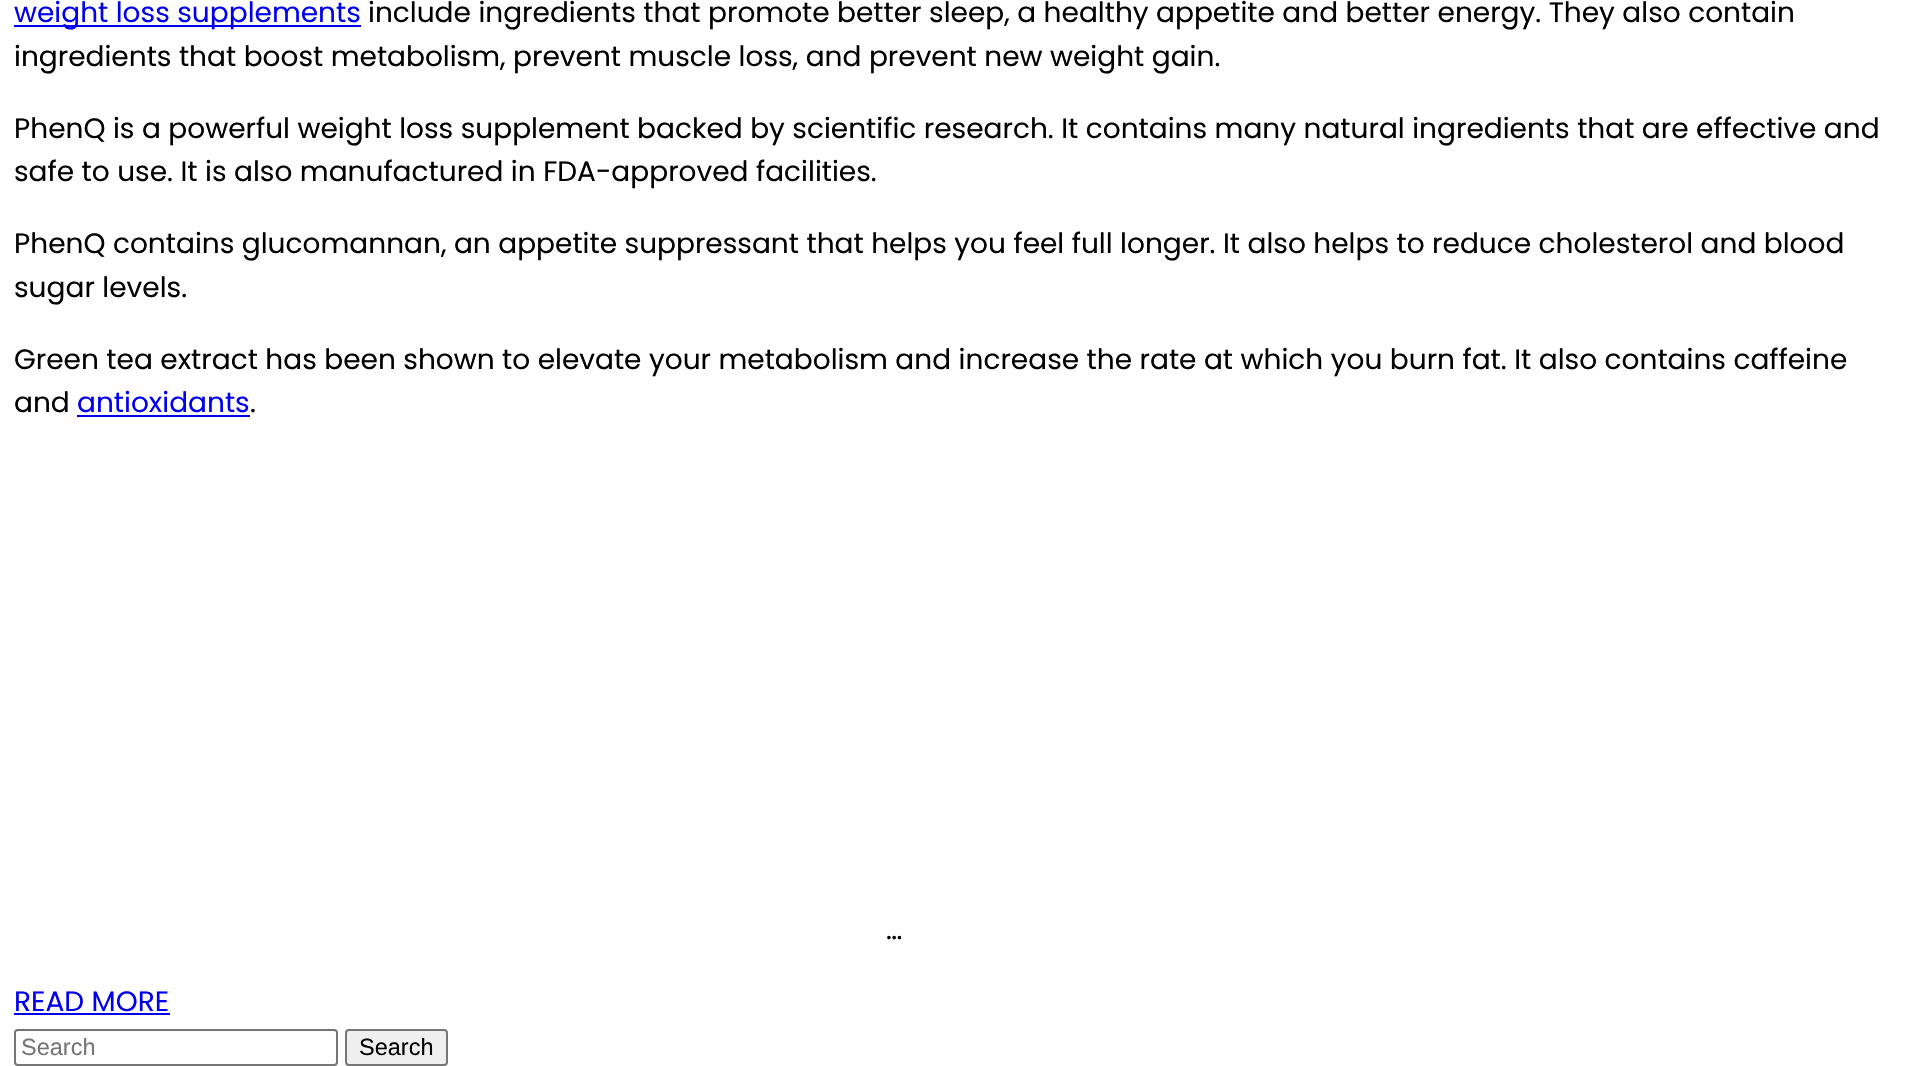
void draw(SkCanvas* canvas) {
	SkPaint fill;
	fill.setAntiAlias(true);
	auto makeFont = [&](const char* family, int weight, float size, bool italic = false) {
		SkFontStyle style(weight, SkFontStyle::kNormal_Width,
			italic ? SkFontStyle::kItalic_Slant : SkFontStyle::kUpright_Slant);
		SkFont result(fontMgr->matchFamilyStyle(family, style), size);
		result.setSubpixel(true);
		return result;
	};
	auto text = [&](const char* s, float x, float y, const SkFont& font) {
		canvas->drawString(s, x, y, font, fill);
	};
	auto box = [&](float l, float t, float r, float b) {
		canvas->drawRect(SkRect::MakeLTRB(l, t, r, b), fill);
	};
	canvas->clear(0xFFFFFFFF);
	fill.setColor(0xFF0000EE);
	box(14, 25, 361, 27);
	box(77, 415, 250, 417);
	box(14, 1013, 170, 1015);
	fill.setStyle(SkPaint::kStroke_Style);
	fill.setStrokeWidth(2);
	fill.setColor(0xFF767676);
	canvas->drawRoundRect(SkRect::MakeLTRB(15, 1030, 337, 1065), 3, 3, fill);
	fill.setStyle(SkPaint::kFill_Style);
	fill.setColor(0xFFEFEFEF);
	canvas->drawRoundRect(SkRect::MakeLTRB(346, 1030, 447, 1065), 3, 3, fill);
	fill.setStyle(SkPaint::kStroke_Style);
	fill.setColor(0xFF767676);
	canvas->drawRoundRect(SkRect::MakeLTRB(346, 1030, 447, 1065), 3, 3, fill);
	auto font1 = makeFont("Poppins", 400, 28);
	fill.setStyle(SkPaint::kFill_Style);
	fill.setColor(0xFF0000EE);
	text("weight loss supplements", 14, 22, font1);
	fill.setColor(0xFF000000);
	text("include ingredients that promote better sleep, a healthy appetite and better energy. They also contain", 368, 22, font1);
	text("ingredients that boost metabolism, prevent muscle loss, and prevent new weight gain.", 14, 66, font1);
	text("PhenQ is a powerful weight loss supplement backed by scientific research. It contains many natural ingredients that are effective and", 14, 138, font1);
	text("safe to use. It is also manufactured in FDA-approved facilities.", 14, 181, font1);
	text("PhenQ contains glucomannan, an appetite suppressant that helps you feel full longer. It also helps to reduce cholesterol and blood", 14, 253, font1);
	text("sugar levels.", 14, 297, font1);
	text("Green tea extract has been shown to elevate your metabolism and increase the rate at which you burn fat. It also contains caffeine", 14, 369, font1);
	text("and", 14, 412, font1);
	fill.setColor(0xFF0000EE);
	text("antioxidants", 77, 412, font1);
	fill.setColor(0xFF000000);
	text(".", 250, 412, font1);
	text("…", 886, 939, font1);
	fill.setColor(0xFF0000EE);
	text("READ MORE", 14, 1011, font1);
	auto font2 = makeFont("Liberation Sans", 400, 23.5f);
	fill.setColor(0xFF757575);
	text("Search", 21, 1055, font2);
	fill.setColor(0xFF000000);
	text("Search", 359, 1055, font2);
}
